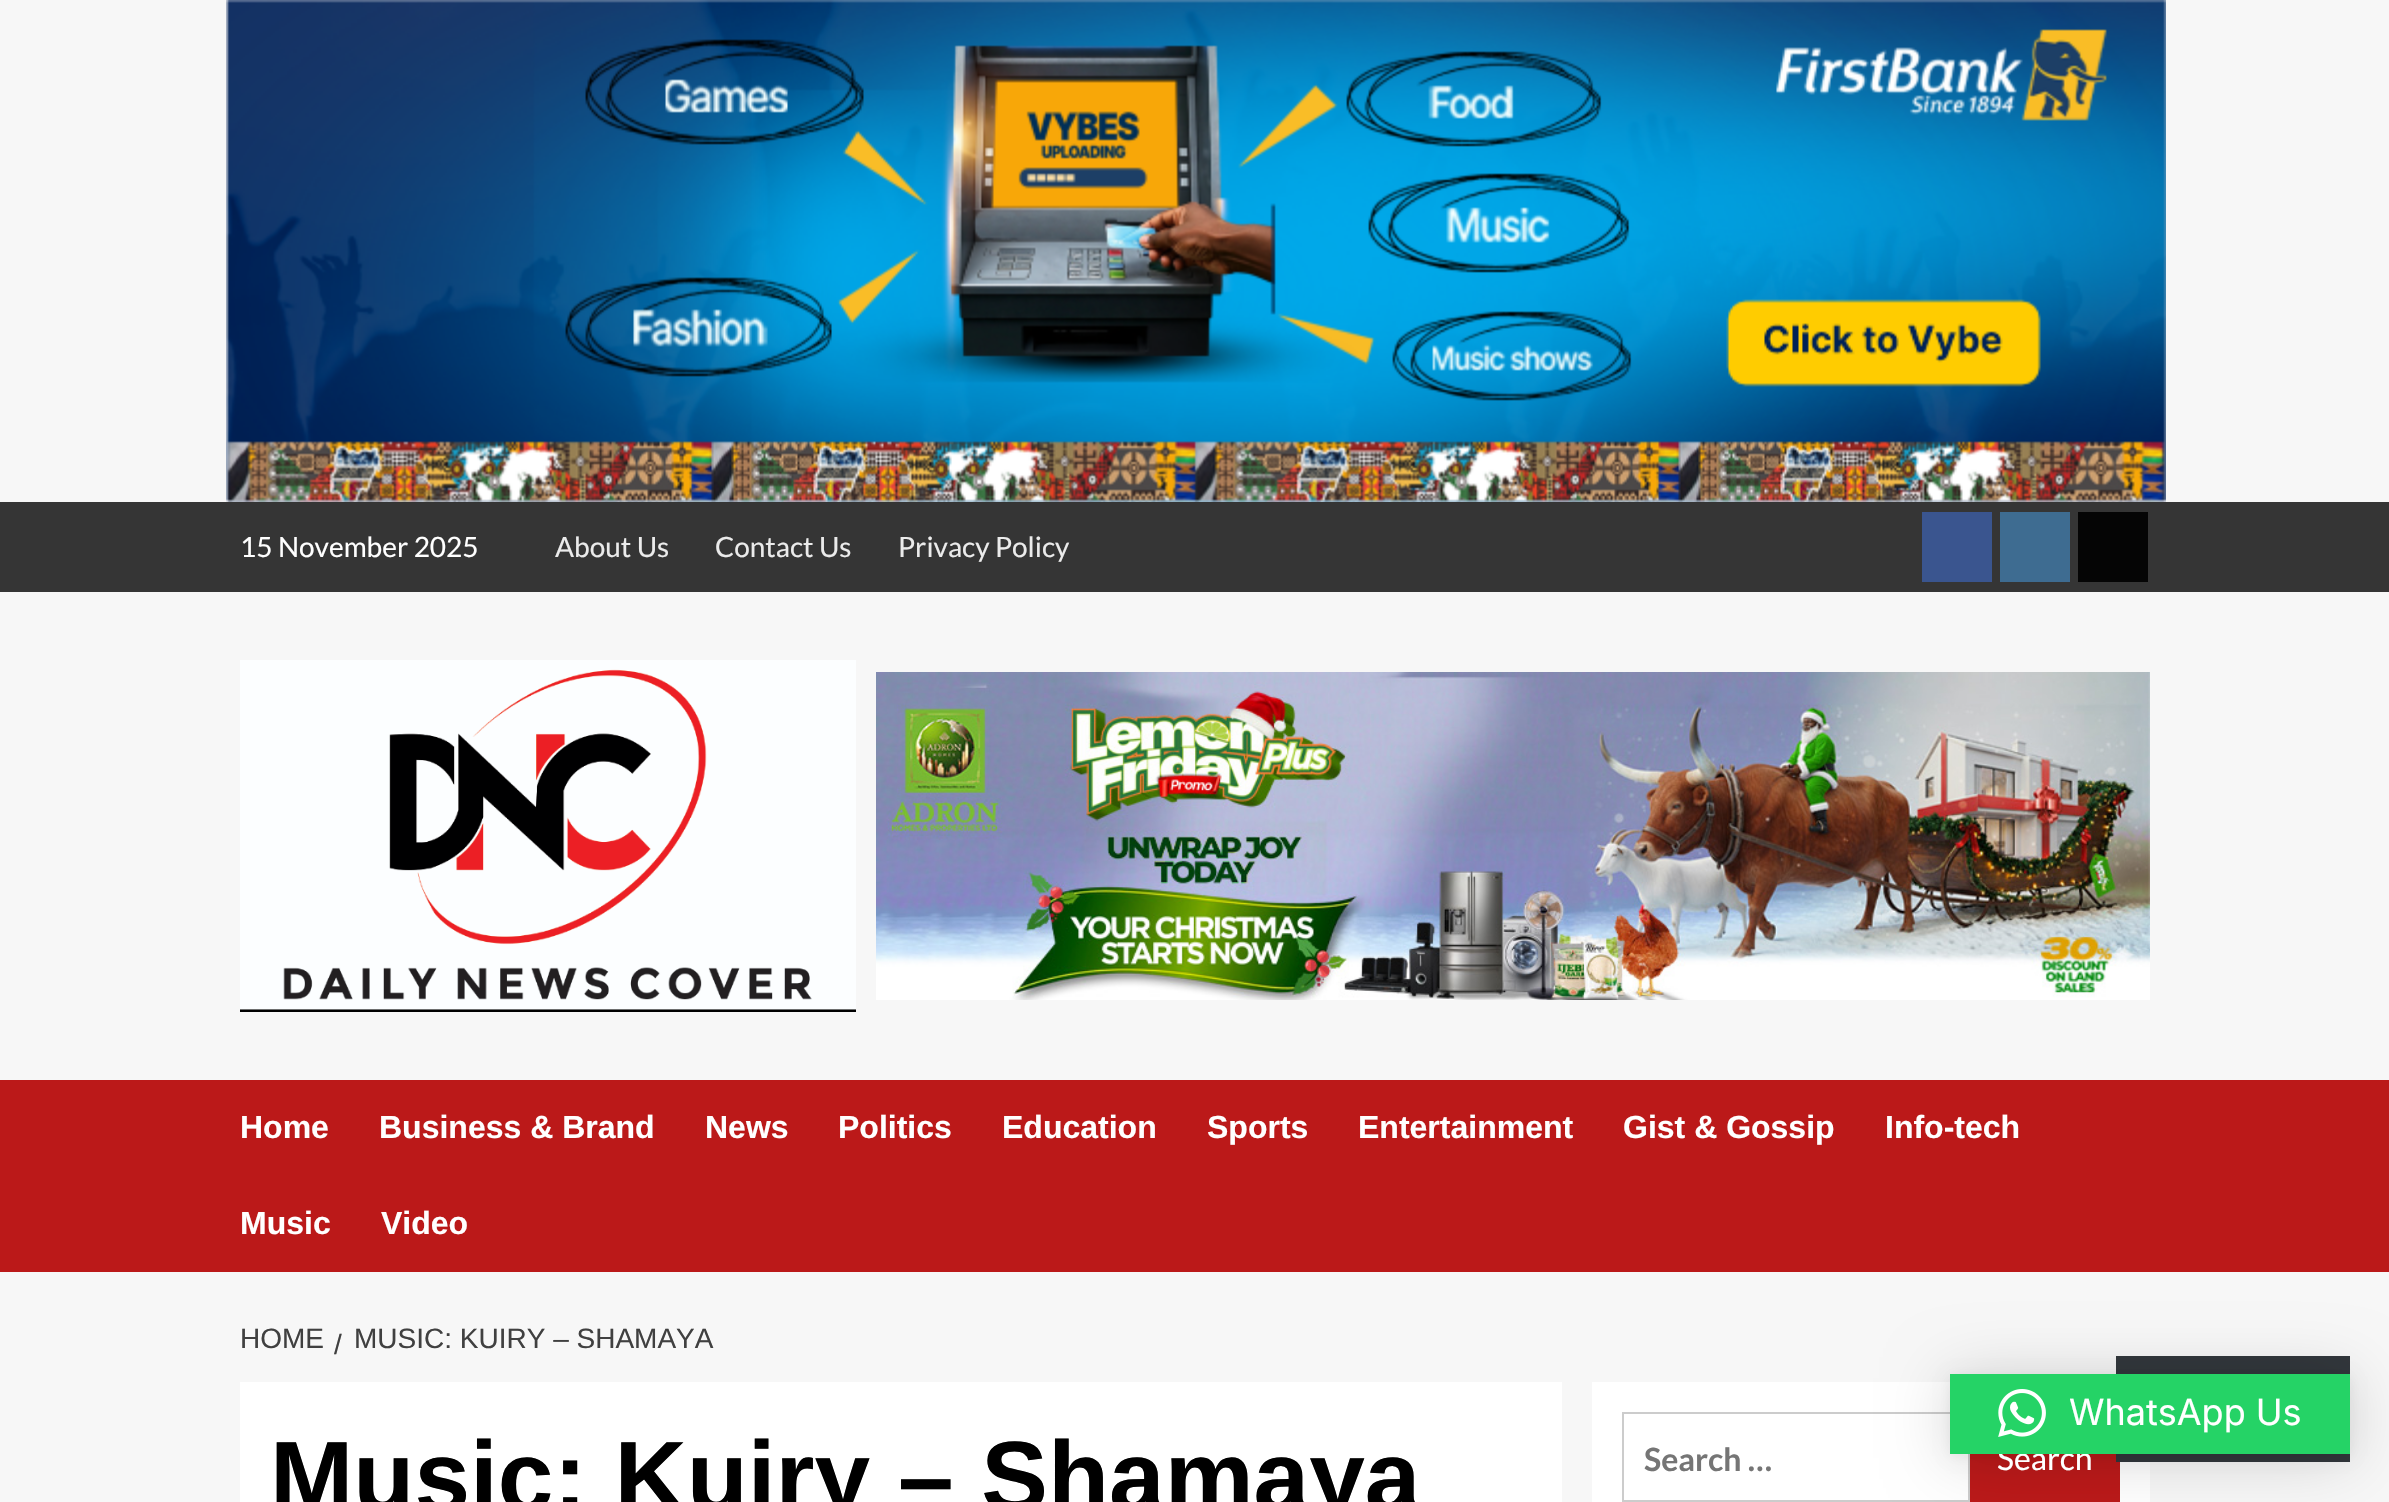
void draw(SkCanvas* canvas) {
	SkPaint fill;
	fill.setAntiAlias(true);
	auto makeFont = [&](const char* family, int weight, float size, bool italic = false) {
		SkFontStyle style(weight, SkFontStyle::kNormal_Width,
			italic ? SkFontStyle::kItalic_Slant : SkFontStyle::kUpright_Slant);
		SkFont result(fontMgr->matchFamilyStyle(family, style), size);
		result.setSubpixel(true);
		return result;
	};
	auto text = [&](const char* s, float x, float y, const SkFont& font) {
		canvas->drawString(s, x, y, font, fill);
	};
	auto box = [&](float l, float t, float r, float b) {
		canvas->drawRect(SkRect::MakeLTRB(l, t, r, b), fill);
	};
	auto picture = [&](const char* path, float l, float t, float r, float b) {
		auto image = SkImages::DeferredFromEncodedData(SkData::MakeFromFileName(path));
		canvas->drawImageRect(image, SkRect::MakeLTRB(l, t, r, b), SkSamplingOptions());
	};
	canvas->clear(0xFFF7F7F7);
	picture("image0.png", 226, 0, 2166, 502);
	fill.setColor(0xFF353535);
	box(0, 502, 2389, 592);
	fill.setColor(0xFF3A558F);
	box(1922, 512, 1992, 582);
	fill.setColor(0xFF3E6C91);
	box(2000, 512, 2070, 582);
	fill.setColor(0xFF050505);
	box(2078, 512, 2148, 582);
	picture("image1.png", 240, 660, 856, 1012);
	picture("image2.png", 876, 672, 2150, 1000);
	fill.setColor(0xFFBB1919);
	box(0, 1080, 2389, 1272);
	fill.setColor(0xFFFFFFFF);
	box(240, 1382, 1562, 1502);
	box(1592, 1382, 2150, 1502);
	fill.setStyle(SkPaint::kStroke_Style);
	fill.setStrokeWidth(2);
	fill.setColor(0xFFCCCCCC);
	canvas->drawRect(SkRect::MakeLTRB(1623, 1413, 1969, 1501), fill);
	fill.setStyle(SkPaint::kFill_Style);
	fill.setColor(0xFFBB1919);
	box(1970, 1454, 2120, 1502);
	fill.setColor(0xFF32373C);
	box(2116, 1356, 2350, 1462);
	fill.setColor(0x29000000);
	fill.setMaskFilter(SkMaskFilter::MakeBlur(kNormal_SkBlurStyle, 32));
	canvas->drawRect(SkRect::MakeLTRB(1950, 1378, 2350, 1458), fill);
	fill.setMaskFilter(nullptr);
	fill.setColor(0x0F000000);
	fill.setMaskFilter(SkMaskFilter::MakeBlur(kNormal_SkBlurStyle, 6));
	canvas->drawRect(SkRect::MakeLTRB(1950, 1376, 2350, 1456), fill);
	fill.setMaskFilter(nullptr);
	auto font1 = makeFont("Lato", 400, 28);
	fill.setColor(0xFFFFFFFF);
	text("15 November 2025", 240, 557, font1);
	fill.setColor(0xFFEBEBEB);
	text("About Us", 555, 557, font1);
	text("Contact Us", 715, 557, font1);
	text("Privacy Policy", 898, 557, font1);
	auto font2 = makeFont("Liberation Sans", 700, 32);
	fill.setColor(0xFFFFFFFF);
	text("Home", 240, 1138, font2);
	text("Business & Brand", 379, 1138, font2);
	text("News", 705, 1138, font2);
	text("Politics", 838, 1138, font2);
	text("Education", 1002, 1138, font2);
	text("Sports", 1207, 1138, font2);
	text("Entertainment", 1358, 1138, font2);
	text("Gist & Gossip", 1623, 1138, font2);
	text("Info-tech", 1885, 1138, font2);
	text("Music", 240, 1234, font2);
	text("Video", 381, 1234, font2);
	auto font3 = makeFont("Liberation Sans", 400, 28);
	fill.setColor(0xFF404040);
	text("HOME", 240, 1348, font3);
	text("/", 334, 1354, font3);
	text("MUSIC: KUIRY – SHAMAYA", 354, 1348, font3);
	auto font4 = makeFont("Liberation Sans", 700, 100);
	fill.setColor(0xFF000000);
	text("Music: Kuiry – Shamaya", 270, 1511, font4);
	auto font5 = makeFont("Lato", 700, 32);
	fill.setColor(0xFF757575);
	text("Search …", 1644, 1471, font5);
	auto font6 = makeFont("Lato", 400, 32);
	fill.setColor(0xFFFFFFFF);
	text("Search", 1997, 1470, font6);
	fill.setColor(0xFF25D366);
	box(1950, 1374, 2350, 1454);
	picture("image3.png", 1998, 1389, 2046, 1437);
	auto font7 = makeFont("Inter", 400, 36);
	fill.setColor(0xFFFFFFFF);
	text("WhatsApp Us", 2069, 1425, font7);
}
